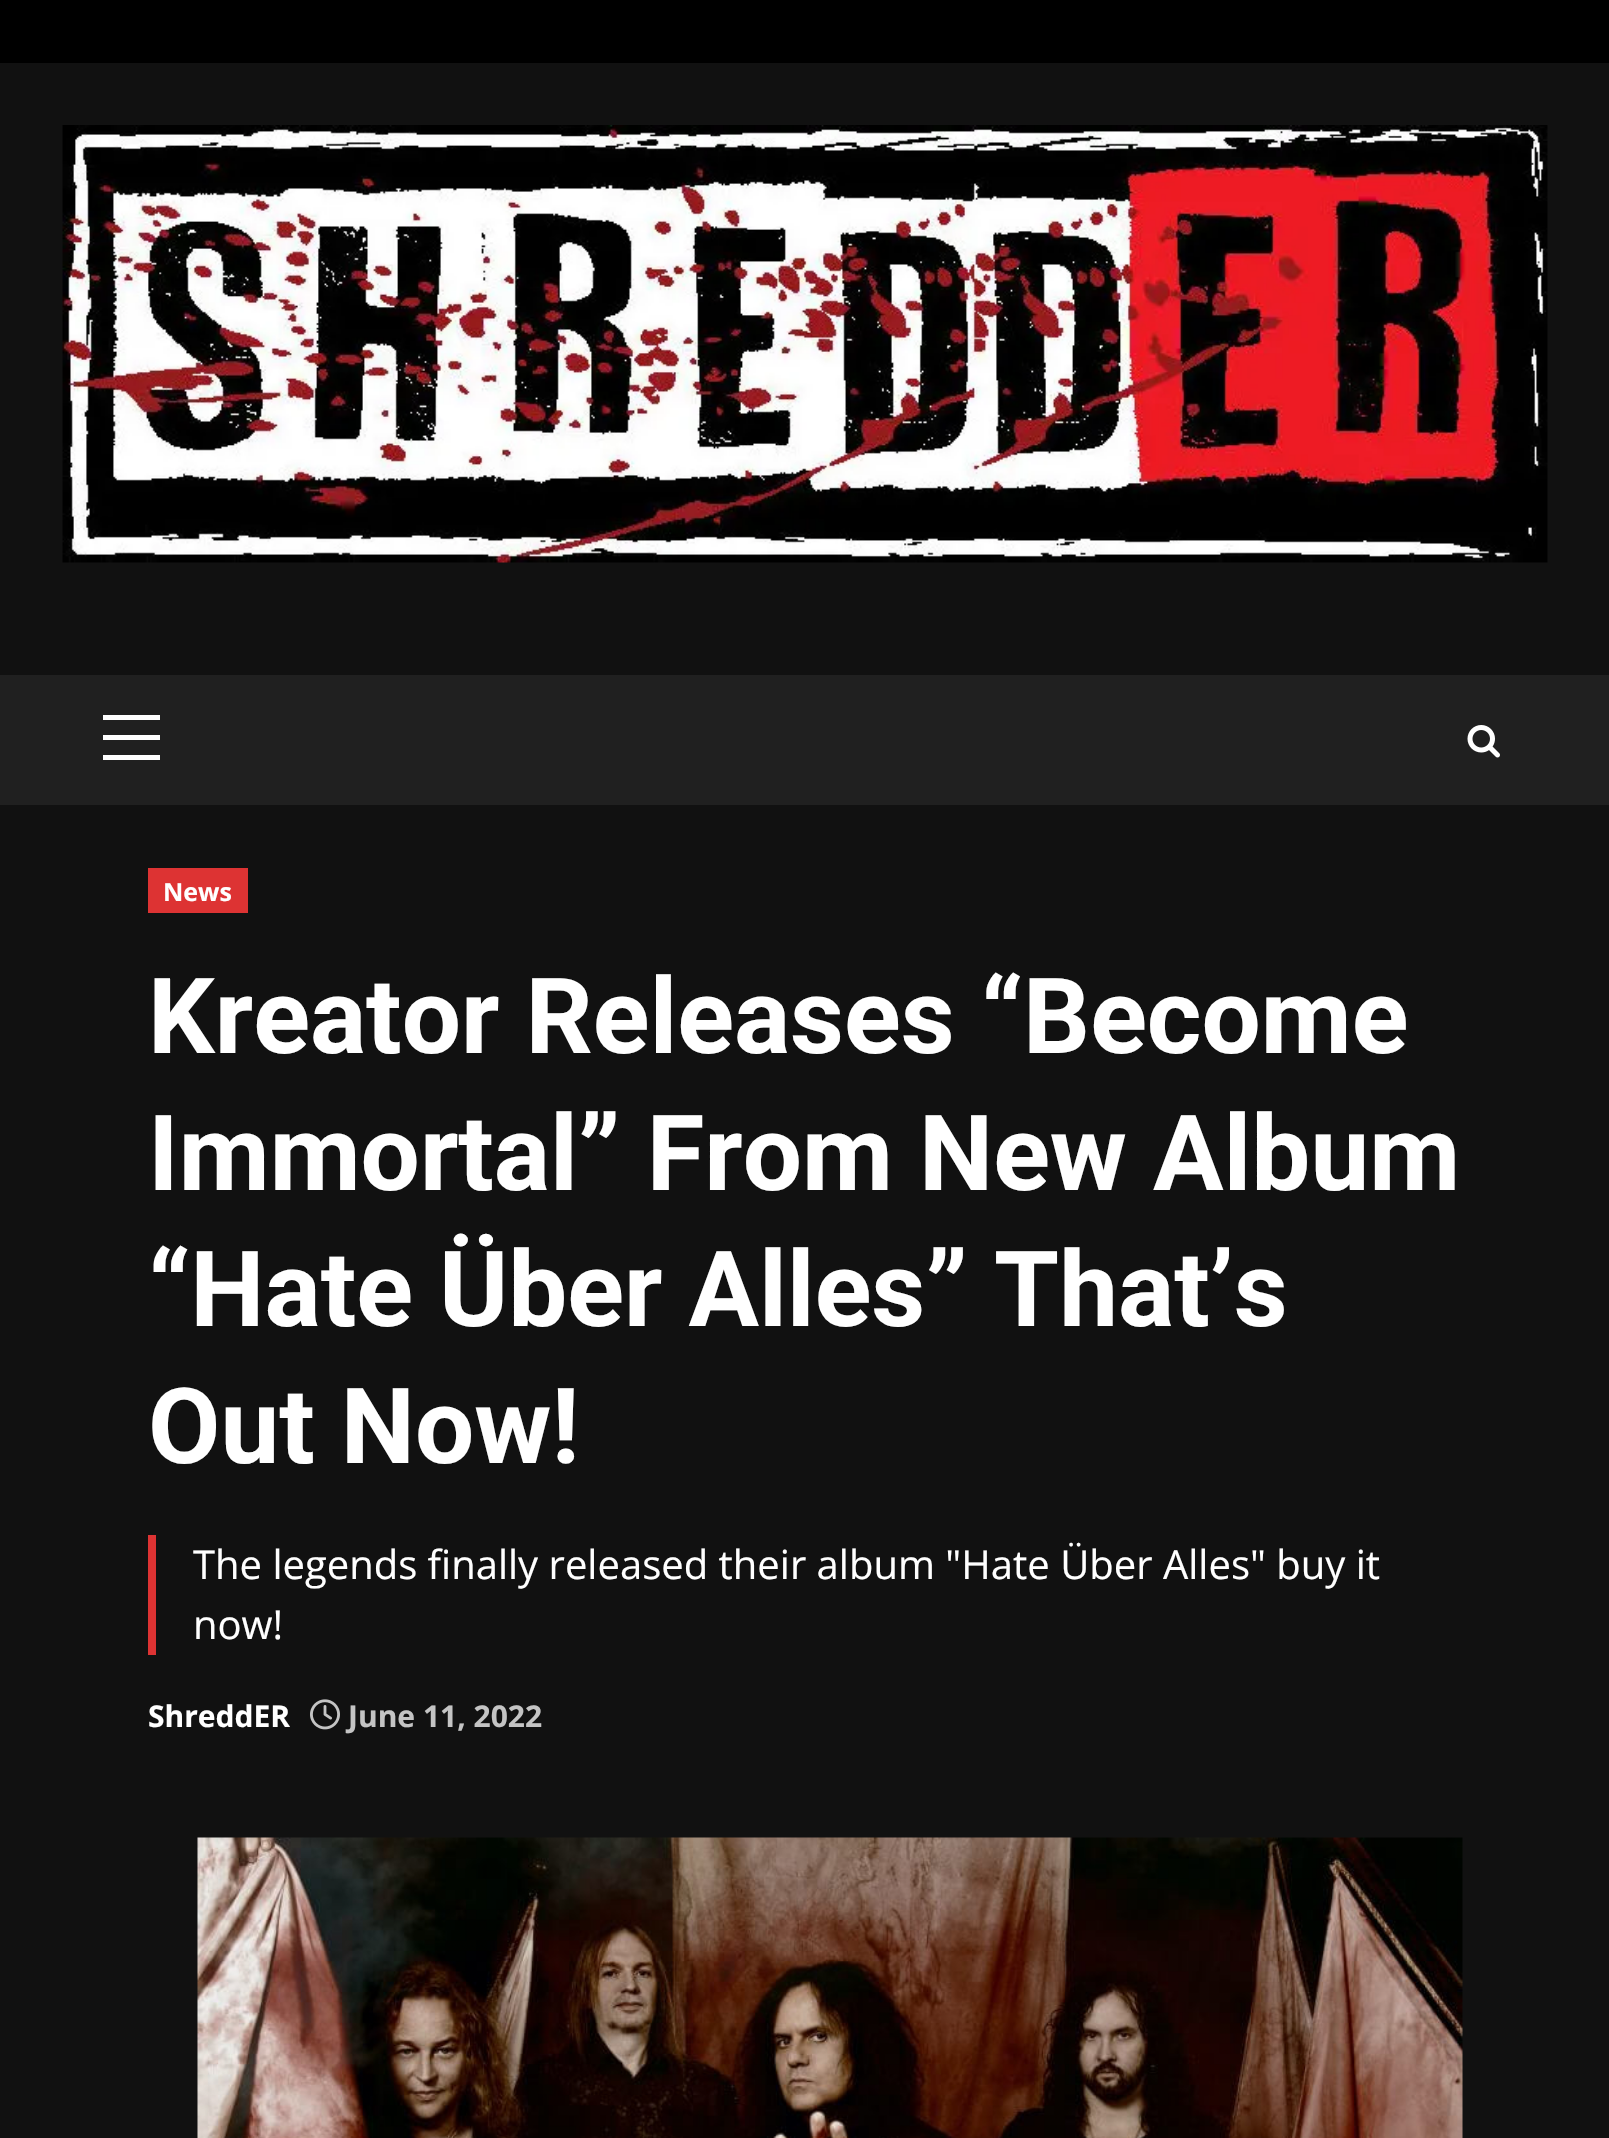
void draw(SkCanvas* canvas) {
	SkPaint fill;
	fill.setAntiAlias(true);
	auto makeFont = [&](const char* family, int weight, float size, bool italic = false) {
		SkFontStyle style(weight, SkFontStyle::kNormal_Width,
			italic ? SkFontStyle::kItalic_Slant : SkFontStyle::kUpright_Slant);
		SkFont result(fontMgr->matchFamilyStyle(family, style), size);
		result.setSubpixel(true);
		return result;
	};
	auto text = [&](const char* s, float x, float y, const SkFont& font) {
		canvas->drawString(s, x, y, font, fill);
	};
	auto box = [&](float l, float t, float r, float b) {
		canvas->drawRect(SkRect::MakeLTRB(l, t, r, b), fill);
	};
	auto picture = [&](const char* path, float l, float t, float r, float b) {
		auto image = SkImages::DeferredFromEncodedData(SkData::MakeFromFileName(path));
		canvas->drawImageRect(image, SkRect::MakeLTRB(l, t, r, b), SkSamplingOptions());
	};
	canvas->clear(0xFF000000);
	fill.setColor(0xFF111111);
	box(0, 63, 1609, 2138);
	picture("image0.png", 62, 125, 1548, 563);
	fill.setColor(0xFF202020);
	box(0, 675, 1609, 805);
	fill.setColor(0xFFFFFFFF);
	box(103, 735, 160, 740);
	box(103, 715, 160, 720);
	box(103, 755, 160, 760);
	picture("image1.png", 1467, 725, 1500, 758);
	fill.setColor(0xFFDD3333);
	box(148, 868, 248, 913);
	box(148, 1535, 156, 1655);
	picture("image2.png", 310, 1699, 340, 1730);
	picture("image3.png", 197, 1837, 1463, 2138);
	auto font1 = makeFont("Open Sans", 700, 25);
	fill.setColor(0xFFFFFFFF);
	text("News", 163, 901, font1);
	auto font2 = makeFont("Roboto", 700, 105);
	text("Kreator Releases “Become", 148, 1053, font2);
	text("Immortal” From New Album", 148, 1190, font2);
	text("“Hate Über Alles” That’s", 148, 1326, font2);
	text("Out Now!", 148, 1463, font2);
	auto font3 = makeFont("Open Sans", 400, 40);
	text("The legends finally released their album \"Hate Über Alles\" buy it", 193, 1579, font3);
	text("now!", 193, 1639, font3);
	auto font4 = makeFont("Open Sans", 700, 30);
	text("ShreddER", 148, 1727, font4);
	fill.setColor(0xFFC4C4C4);
	text("June 11, 2022", 348, 1727, font4);
}
